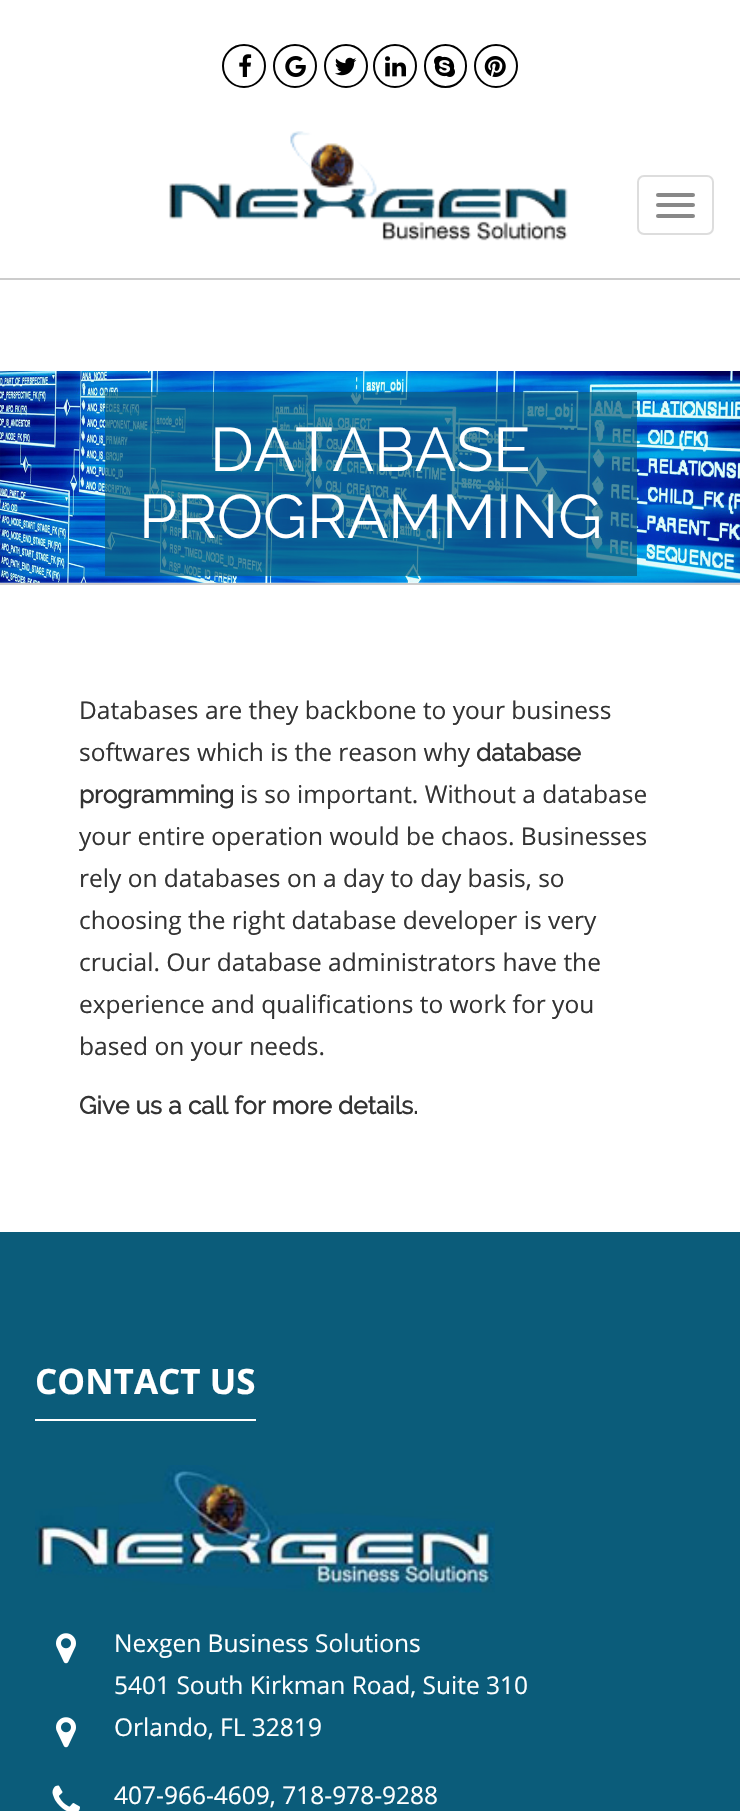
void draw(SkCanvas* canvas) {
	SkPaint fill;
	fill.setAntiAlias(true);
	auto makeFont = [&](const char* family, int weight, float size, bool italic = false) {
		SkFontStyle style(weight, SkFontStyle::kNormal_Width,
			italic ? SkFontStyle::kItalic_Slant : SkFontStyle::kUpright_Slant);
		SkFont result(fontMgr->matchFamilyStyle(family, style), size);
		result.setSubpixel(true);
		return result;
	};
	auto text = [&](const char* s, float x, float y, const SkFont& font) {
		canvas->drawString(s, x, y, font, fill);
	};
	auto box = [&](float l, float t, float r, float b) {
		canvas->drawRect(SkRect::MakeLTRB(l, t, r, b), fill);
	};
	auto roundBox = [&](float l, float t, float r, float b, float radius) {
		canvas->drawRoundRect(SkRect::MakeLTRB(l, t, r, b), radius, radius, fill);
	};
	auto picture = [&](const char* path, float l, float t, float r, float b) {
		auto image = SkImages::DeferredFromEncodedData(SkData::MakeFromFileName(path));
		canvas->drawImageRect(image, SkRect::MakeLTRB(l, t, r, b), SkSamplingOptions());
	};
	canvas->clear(0xFFFFFFFF);
	fill.setColor(0xFFCCCCCC);
	box(0, 278, 740, 280);
	fill.setStyle(SkPaint::kStroke_Style);
	fill.setStrokeWidth(2);
	fill.setColor(0xFF000000);
	canvas->drawCircle(244, 66, 21, fill);
	picture("image0.png", 239, 54, 252, 77);
	canvas->drawCircle(295, 66, 21, fill);
	picture("image1.png", 285, 56, 306, 77);
	canvas->drawCircle(346, 66, 21, fill);
	picture("image2.png", 335, 57, 357, 76);
	canvas->drawCircle(395, 66, 21, fill);
	picture("image3.png", 385, 56, 406, 77);
	canvas->drawRoundRect(SkRect::MakeLTRB(425, 45, 466, 87), 20.5f, 20.5f, fill);
	picture("image4.png", 434, 56, 455, 77);
	canvas->drawCircle(496, 66, 21, fill);
	picture("image5.png", 484, 56, 506, 77);
	picture("image6.png", 169, 131, 568, 241);
	fill.setColor(0xFFDDDDDD);
	canvas->drawRoundRect(SkRect::MakeLTRB(638, 176, 713, 234), 6, 6, fill);
	fill.setStyle(SkPaint::kFill_Style);
	fill.setColor(0xFF888888);
	roundBox(656, 193, 695, 197, 2);
	roundBox(656, 203, 695, 207, 2);
	roundBox(656, 214, 695, 218, 2);
	fill.setColor(0xFFCCCCCC);
	box(0, 583, 740, 585);
	picture("image7.png", 0, 371, 740, 583);
	fill.setColor(0xB30B5C7A);
	box(105, 392, 637, 576);
	fill.setColor(0xFF0B5C7A);
	box(0, 1232, 740, 1811);
	fill.setColor(0xFFFFFFFF);
	box(35, 1419, 256, 1421);
	picture("image8.png", 35, 1465, 495, 1593);
	picture("image9.png", 56, 1633, 76, 1664);
	picture("image9.png", 56, 1717, 76, 1748);
	picture("image10.png", 52, 1785, 80, 1811);
	auto font1 = makeFont("Raleway", 400, 61.25f);
	text("DATABASE", 210, 471, font1);
	text("PROGRAMMING", 139, 538, font1);
	auto font2 = makeFont("Open Sans", 400, 24.5f);
	fill.setColor(0xFF333333);
	text("Databases are they backbone to your business", 79, 719, font2);
	text("softwares which is the reason why", 79, 761, font2);
	auto font3 = makeFont("Raleway", 700, 24.5f);
	text("database", 476, 761, font3);
	text("programming", 79, 803, font3);
	text("is so important. Without a database", 240, 803, font2);
	text("your entire operation would be chaos. Businesses", 79, 845, font2);
	text("rely on databases on a day to day basis, so", 79, 887, font2);
	text("choosing the right database developer is very", 79, 929, font2);
	text("crucial. Our database administrators have the", 79, 971, font2);
	text("experience and qualifications to work for you", 79, 1013, font2);
	text("based on your needs.", 79, 1055, font2);
	text("Give us a call for more details.", 79, 1114, font3);
	auto font4 = makeFont("Open Sans", 700, 35);
	fill.setColor(0xFFFFFFFF);
	text("CONTACT US", 35, 1394, font4);
	text("Nexgen Business Solutions", 114, 1652, font2);
	text("5401 South Kirkman Road, Suite 310", 114, 1694, font2);
	text("Orlando, FL 32819", 114, 1736, font2);
	text("407-966-4609, 718-978-9288", 114, 1804, font2);
}
